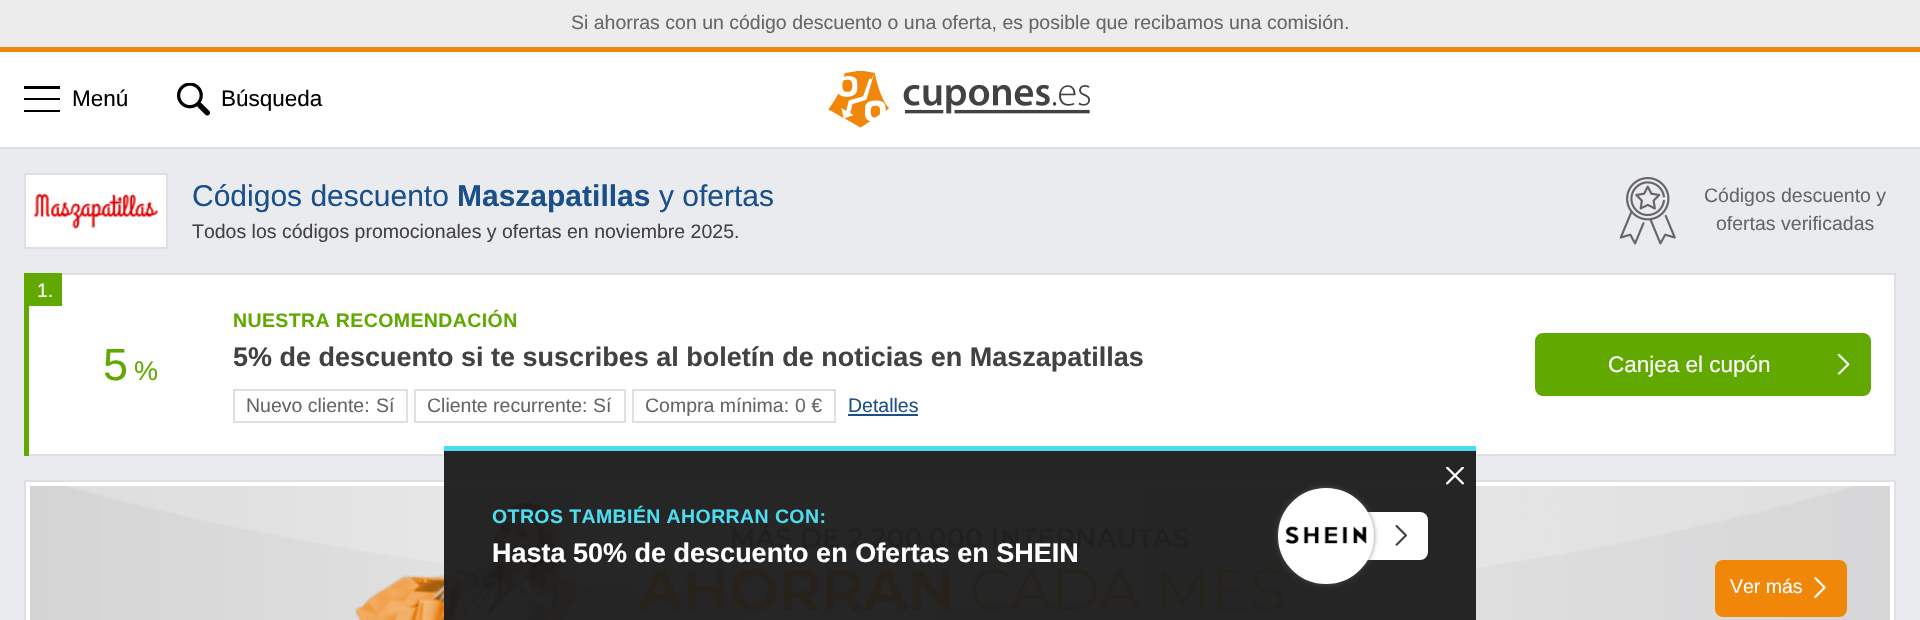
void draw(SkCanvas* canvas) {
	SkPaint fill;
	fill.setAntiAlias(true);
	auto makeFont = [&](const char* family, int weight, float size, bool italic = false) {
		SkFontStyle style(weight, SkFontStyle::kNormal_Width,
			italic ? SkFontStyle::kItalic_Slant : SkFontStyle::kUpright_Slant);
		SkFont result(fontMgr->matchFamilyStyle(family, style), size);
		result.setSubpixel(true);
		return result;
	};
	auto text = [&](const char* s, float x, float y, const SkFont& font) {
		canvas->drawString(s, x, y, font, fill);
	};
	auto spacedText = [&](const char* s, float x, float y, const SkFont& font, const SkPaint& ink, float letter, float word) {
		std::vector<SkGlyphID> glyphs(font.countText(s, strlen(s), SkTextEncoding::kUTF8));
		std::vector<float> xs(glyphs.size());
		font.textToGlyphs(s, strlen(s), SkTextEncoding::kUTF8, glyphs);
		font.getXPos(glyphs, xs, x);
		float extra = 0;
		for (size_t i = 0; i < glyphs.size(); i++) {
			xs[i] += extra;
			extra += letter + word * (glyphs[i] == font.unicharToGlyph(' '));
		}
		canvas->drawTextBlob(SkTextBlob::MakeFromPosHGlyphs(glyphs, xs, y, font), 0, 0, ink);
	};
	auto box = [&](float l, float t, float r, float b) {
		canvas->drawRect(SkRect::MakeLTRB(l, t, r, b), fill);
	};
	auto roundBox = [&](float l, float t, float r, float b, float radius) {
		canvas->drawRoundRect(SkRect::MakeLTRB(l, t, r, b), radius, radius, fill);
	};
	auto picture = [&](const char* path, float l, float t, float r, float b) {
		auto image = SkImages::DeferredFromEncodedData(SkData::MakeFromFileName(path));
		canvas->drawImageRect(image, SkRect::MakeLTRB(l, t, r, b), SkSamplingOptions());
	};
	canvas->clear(0xFFE9EBEE);
	fill.setColor(0xFFECECEC);
	box(0, 0, 1920, 47);
	fill.setColor(0xFFFFFFFF);
	box(0, 52, 1920, 147);
	fill.setColor(0xFFF18709);
	box(0, 47, 1920, 52);
	fill.setColor(0xFFDDDFE2);
	box(0, 147, 1920, 149);
	fill.setColor(0xFF000000);
	box(24, 86, 60, 89);
	box(24, 98, 60, 100);
	box(24, 110, 60, 112);
	picture("image0.png", 177, 83, 210, 116);
	picture("image1.png", 828, 71, 1090, 128);
	fill.setColor(0xFFFFFFFF);
	box(26, 175, 166, 247);
	picture("image2.png", 34, 193, 158, 229);
	fill.setStyle(SkPaint::kStroke_Style);
	fill.setStrokeWidth(2);
	fill.setColor(0xFFDDDFE2);
	canvas->drawRect(SkRect::MakeLTRB(25, 174, 167, 248), fill);
	picture("image3.png", 1619, 177, 1676, 245);
	fill.setStyle(SkPaint::kFill_Style);
	fill.setColor(0xFFFFFFFF);
	box(29, 275, 1894, 454);
	fill.setStyle(SkPaint::kStroke_Style);
	fill.setColor(0xFFDDDFE2);
	canvas->drawRect(SkRect::MakeLTRB(25, 274, 1895, 455), fill);
	fill.setStyle(SkPaint::kFill_Style);
	fill.setColor(0xFF61A900);
	box(24, 273, 29, 456);
	box(29, 273, 62, 306);
	canvas->drawRoundRect(SkRect::MakeLTRB(1536, 334, 1870, 395), 7, 7, fill);
	fill.setStyle(SkPaint::kStroke_Style);
	canvas->drawRoundRect(SkRect::MakeLTRB(1536, 334, 1870, 395), 7, 7, fill);
	picture("image4.png", 1837, 354, 1850, 375);
	fill.setColor(0xFFDDDFE2);
	canvas->drawRect(SkRect::MakeLTRB(234, 390, 407, 422), fill);
	canvas->drawRect(SkRect::MakeLTRB(415, 390, 625, 422), fill);
	canvas->drawRect(SkRect::MakeLTRB(633, 390, 835, 422), fill);
	fill.setStyle(SkPaint::kFill_Style);
	fill.setColor(0xFF1A4F89);
	box(848, 414, 918, 416);
	fill.setColor(0xFFFFFFFF);
	canvas->drawRect(SkRect::MakeLTRB(25, 481, 1895, 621), fill);
	fill.setStyle(SkPaint::kStroke_Style);
	fill.setColor(0xFFDDDFE2);
	canvas->drawRect(SkRect::MakeLTRB(25, 481, 1895, 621), fill);
	picture("image5.png", 30, 486, 1890, 620);
	fill.setStyle(SkPaint::kFill_Style);
	fill.setColor(0xFFF18709);
	roundBox(1715, 560, 1847, 617, 8);
	picture("image6.png", 1814, 577, 1826, 598);
	fill.setColor(0xF21A1A1A);
	box(444, 451, 1476, 620);
	fill.setColor(0xFF4DDCF0);
	box(444, 446, 1476, 451);
	picture("image7.png", 1446, 467, 1464, 485);
	fill.setColor(0xFFFFFFFF);
	roundBox(1293, 512, 1428, 560, 8);
	fill.setColor(0xBF666666);
	fill.setMaskFilter(SkMaskFilter::MakeBlur(kNormal_SkBlurStyle, 2.5f));
	canvas->drawRoundRect(SkRect::MakeLTRB(1278, 488, 1374, 584), 48, 48, fill);
	fill.setMaskFilter(nullptr);
	fill.setColor(0xFFFFFFFF);
	canvas->drawCircle(1326, 536, 46.5f, fill);
	fill.setStyle(SkPaint::kStroke_Style);
	fill.setStrokeWidth(3);
	canvas->drawCircle(1326, 536, 46.5f, fill);
	picture("image8.png", 1285, 526, 1367, 544);
	picture("image9.png", 1395, 525, 1407, 546);
	auto font1 = makeFont("Liberation Sans", 400, 19.5f);
	fill.setStyle(SkPaint::kFill_Style);
	fill.setColor(0xFF666666);
	text("Si ahorras con un código descuento o una oferta, es posible que recibamos una comisión.", 571, 29, font1);
	auto font2 = makeFont("Liberation Sans", 400, 22.5f);
	fill.setColor(0xFF000000);
	text("Menú", 72, 106, font2);
	text("Búsqueda", 221, 106, font2);
	auto font3 = makeFont("Liberation Sans", 400, 30);
	fill.setColor(0xFF1A4F89);
	text("Códigos descuento", 192, 206, font3);
	auto font4 = makeFont("Liberation Sans", 700, 30);
	text("Maszapatillas", 457, 206, font4);
	text("y ofertas", 659, 206, font3);
	fill.setColor(0xFF424242);
	text("Todos los códigos promocionales y ofertas en noviembre 2025.", 192, 238, font1);
	fill.setColor(0xFF666666);
	text("Códigos descuento y", 1704, 202, font1);
	text("ofertas verificadas", 1716, 230, font1);
	fill.setColor(0xFFFFFFFF);
	text("1.", 37, 297, font1);
	auto font5 = makeFont("Liberation Sans", 400, 45);
	fill.setColor(0xFF61A900);
	text("5", 103, 380, font5);
	auto font6 = makeFont("Liberation Sans", 400, 27);
	text("%", 134, 380, font6);
	auto font7 = makeFont("Liberation Sans", 700, 19.5f);
	spacedText("NUESTRA RECOMENDACIÓN", 233, 327, font7, fill, 0.4f, 0);
	auto font8 = makeFont("Liberation Sans", 700, 27);
	fill.setColor(0xFF424242);
	text("5% de descuento si te suscribes al boletín de noticias en Maszapatillas", 233, 366, font8);
	fill.setColor(0xFFFFFFFF);
	text("Canjea el cupón", 1608, 372, font2);
	fill.setColor(0xFF666666);
	text("Nuevo cliente:", 246, 412, font1);
	text("Sí", 376, 412, font1);
	text("Cliente recurrente:", 427, 412, font1);
	text("Sí", 593, 412, font1);
	text("Compra mínima:", 645, 412, font1);
	text("0 €", 795, 412, font1);
	fill.setColor(0xFF1A4F89);
	text("Detalles", 848, 412, font1);
	fill.setColor(0xFFFFFFFF);
	text("Ver más", 1730, 593, font1);
	fill.setColor(0xFF4DDCF0);
	spacedText("OTROS TAMBIÉN AHORRAN CON:", 492, 523, font7, fill, 0.4f, 0);
	fill.setColor(0xFFFFFFFF);
	text("Hasta 50% de descuento en Ofertas en SHEIN", 492, 562, font8);
}
